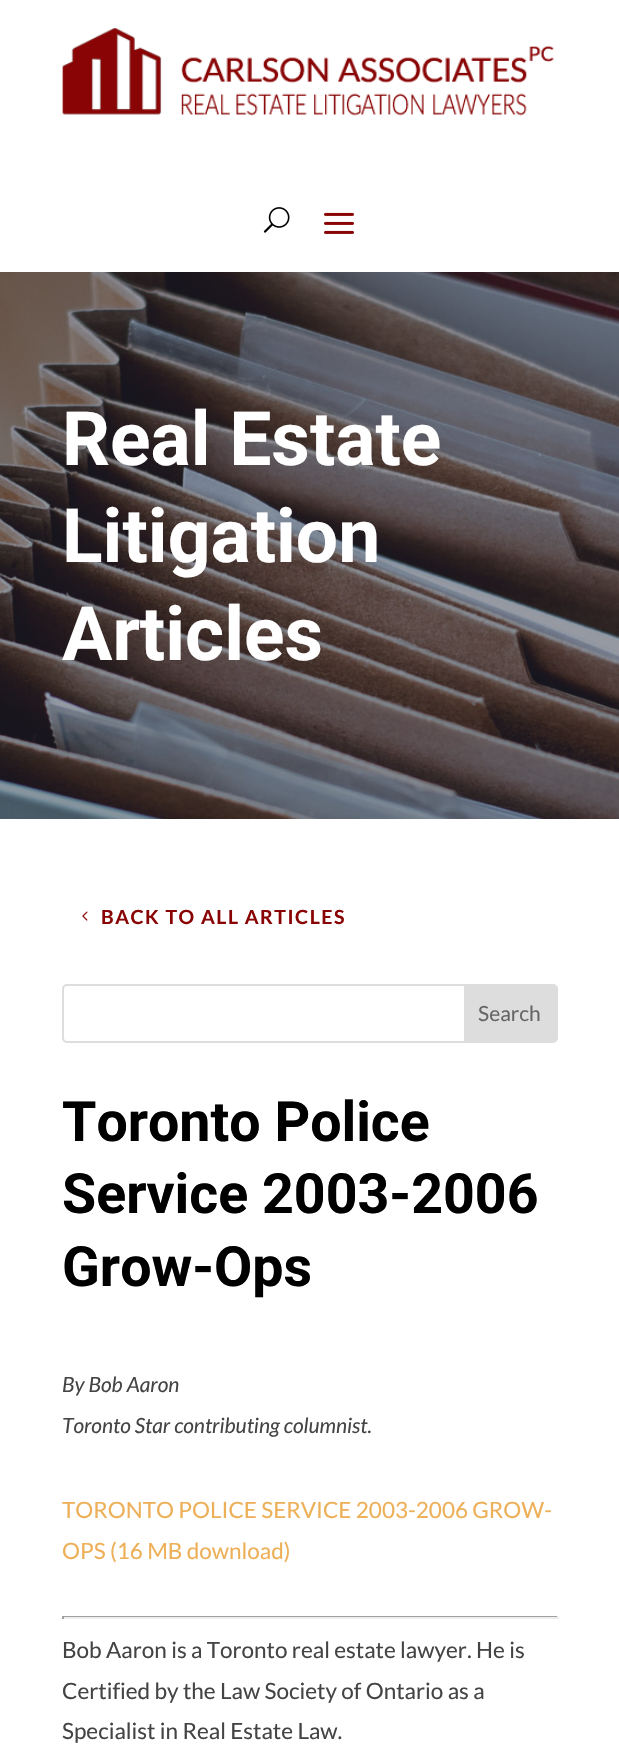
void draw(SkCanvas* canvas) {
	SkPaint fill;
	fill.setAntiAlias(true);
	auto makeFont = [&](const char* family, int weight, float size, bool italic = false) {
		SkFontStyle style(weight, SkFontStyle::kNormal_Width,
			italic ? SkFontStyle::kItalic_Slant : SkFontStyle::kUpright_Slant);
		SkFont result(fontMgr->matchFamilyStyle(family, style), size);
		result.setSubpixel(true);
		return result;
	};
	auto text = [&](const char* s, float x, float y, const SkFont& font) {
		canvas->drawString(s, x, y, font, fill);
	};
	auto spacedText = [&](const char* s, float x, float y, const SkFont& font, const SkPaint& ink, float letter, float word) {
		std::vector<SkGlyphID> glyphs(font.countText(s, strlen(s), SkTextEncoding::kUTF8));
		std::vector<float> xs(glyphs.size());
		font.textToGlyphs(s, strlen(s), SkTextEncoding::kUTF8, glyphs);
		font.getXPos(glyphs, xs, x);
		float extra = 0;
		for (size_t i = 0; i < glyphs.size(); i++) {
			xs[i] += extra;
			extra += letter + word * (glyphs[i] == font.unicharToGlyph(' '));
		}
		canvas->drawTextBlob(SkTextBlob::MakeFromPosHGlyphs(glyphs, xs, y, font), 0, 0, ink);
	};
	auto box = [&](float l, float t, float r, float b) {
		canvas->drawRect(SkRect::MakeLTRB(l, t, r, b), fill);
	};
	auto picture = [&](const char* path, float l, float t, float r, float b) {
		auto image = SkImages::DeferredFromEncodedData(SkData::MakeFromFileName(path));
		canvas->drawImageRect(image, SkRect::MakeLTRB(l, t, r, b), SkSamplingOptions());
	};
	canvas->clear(0xFFFFFFFF);
	picture("image0.png", 62, 28, 554, 116);
	picture("image1.png", 263, 207, 290, 233);
	picture("image2.png", 324, 212, 354, 234);
	picture("image3.png", 0, 272, 619, 819);
	picture("image4.png", 82, 911, 88, 921);
	fill.setStyle(SkPaint::kStroke_Style);
	fill.setStrokeWidth(2);
	fill.setColor(0xFFDDDDDD);
	canvas->drawRoundRect(SkRect::MakeLTRB(63, 985, 557, 1042), 4, 4, fill);
	fill.setStyle(SkPaint::kFill_Style);
	canvas->drawPath(SkPathBuilder().moveTo(464, 986).lineTo(554, 986).cubicTo(555.5f, 986, 557, 987.5f, 557, 989).lineTo(557, 1038).cubicTo(557, 1039.5f, 555.5f, 1041, 554, 1041).lineTo(464, 1041).close().detach(), fill);
	fill.setColor(0xFF9F9F9F);
	box(62, 1616, 558, 1617);
	fill.setColor(0xFFEEEEEE);
	box(557, 1616, 559, 1619);
	box(62, 1617, 558, 1619);
	fill.setColor(0xFF9F9F9F);
	box(62, 1616, 64, 1619);
	auto font1 = makeFont("Roboto", 700, 75);
	fill.setColor(0xFFFFFFFF);
	text("Real Estate", 62, 465, font1);
	text("Litigation", 62, 562, font1);
	text("Articles", 62, 660, font1);
	auto font2 = makeFont("Lato", 700, 19.5f);
	fill.setColor(0xFF890505);
	spacedText("BACK TO ALL ARTICLES", 101, 924, font2, fill, 1.5f, 0);
	auto font3 = makeFont("Lato", 400, 21);
	fill.setColor(0xFF666666);
	text("Search", 478, 1021, font3);
	auto font4 = makeFont("Roboto", 700, 55.5f);
	fill.setColor(0xFF000000);
	text("Toronto Police", 62, 1141, font4);
	text("Service 2003-2006", 62, 1213, font4);
	text("Grow-Ops", 62, 1286, font4);
	auto font5 = makeFont("Lato", 400, 21, true);
	fill.setColor(0xFF444444);
	text("By Bob Aaron", 62, 1392, font5);
	text("Toronto Star contributing columnist.", 62, 1433, font5);
	auto font6 = makeFont("Lato", 400, 22.5f);
	fill.setColor(0xFFEDB059);
	text("TORONTO POLICE SERVICE 2003-2006 GROW-", 62, 1518, font6);
	text("OPS (16 MB download)", 62, 1559, font6);
	fill.setColor(0xFF444444);
	text("Bob Aaron is a Toronto real estate lawyer. He is", 62, 1658, font6);
	text("Certified by the Law Society of Ontario as a", 62, 1699, font6);
	text("Specialist in Real Estate Law.", 62, 1739, font6);
}
